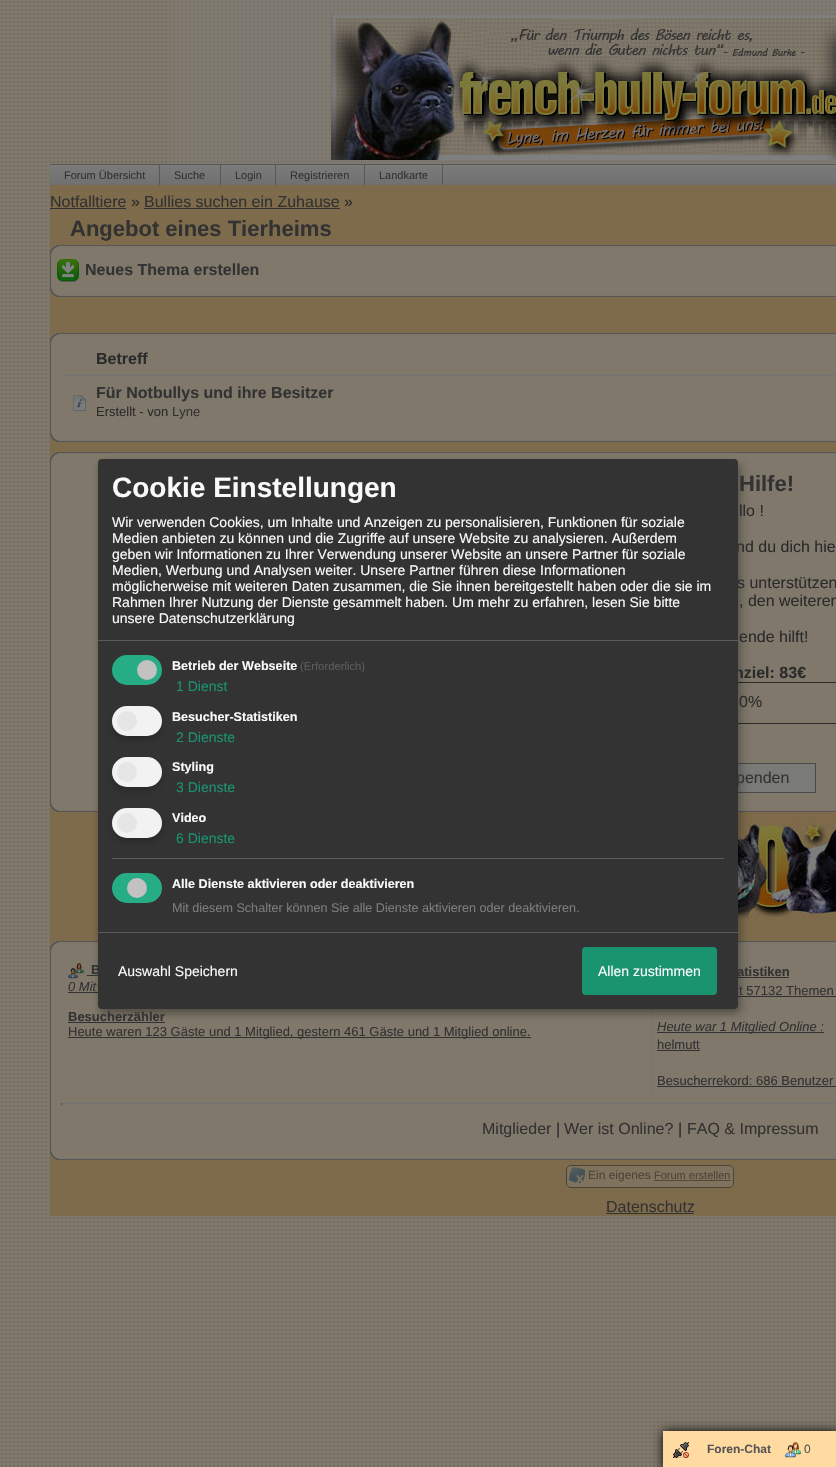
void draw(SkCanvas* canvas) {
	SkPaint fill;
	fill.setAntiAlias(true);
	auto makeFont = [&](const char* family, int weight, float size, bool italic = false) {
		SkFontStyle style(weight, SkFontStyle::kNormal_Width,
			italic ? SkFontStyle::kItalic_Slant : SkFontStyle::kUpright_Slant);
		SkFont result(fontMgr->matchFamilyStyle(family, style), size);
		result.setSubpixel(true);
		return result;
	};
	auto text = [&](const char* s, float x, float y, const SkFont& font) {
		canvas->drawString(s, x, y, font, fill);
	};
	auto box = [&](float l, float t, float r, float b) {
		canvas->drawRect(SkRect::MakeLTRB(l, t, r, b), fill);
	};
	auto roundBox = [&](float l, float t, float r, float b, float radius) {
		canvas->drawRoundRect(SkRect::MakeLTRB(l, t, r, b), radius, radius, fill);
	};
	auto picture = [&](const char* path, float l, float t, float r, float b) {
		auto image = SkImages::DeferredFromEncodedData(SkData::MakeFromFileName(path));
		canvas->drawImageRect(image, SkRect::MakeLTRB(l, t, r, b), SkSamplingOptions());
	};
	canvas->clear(0xFF80786B);
	picture("image0.png", 1, 1, 835, 1467);
	picture("image1.png", 169, 0, 836, 164);
	picture("image2.png", 331, 15, 836, 160);
	fill.setColor(0xFF7C7C7C);
	box(50, 165, 836, 167);
	picture("image3.png", 50, 167, 836, 185);
	fill.setColor(0xFF575757);
	box(50, 164, 836, 165);
	box(159, 165, 160, 185);
	box(220, 165, 221, 185);
	box(275, 165, 276, 185);
	box(364, 165, 365, 185);
	box(442, 165, 443, 185);
	fill.setColor(0xFF7D6B4B);
	box(50, 185, 836, 1216);
	fill.setColor(0xFF323232);
	box(50, 208, 126, 209);
	box(144, 208, 340, 209);
	picture("image4.png", 50, 245, 836, 254);
	fill.setColor(0xFF80786B);
	box(51, 254, 836, 287);
	fill.setColor(0xFF555555);
	box(50, 254, 51, 288);
	picture("image5.png", 57, 259, 79, 282);
	picture("image6.png", 50, 287, 836, 297);
	picture("image4.png", 50, 333, 836, 342);
	fill.setColor(0xFF80786B);
	box(51, 342, 836, 432);
	fill.setColor(0xFF555555);
	box(50, 342, 51, 433);
	picture("image7.png", 73, 395, 86, 411);
	fill.setColor(0xFF737373);
	box(61, 375, 836, 376);
	picture("image6.png", 50, 432, 836, 442);
	picture("image4.png", 50, 452, 836, 461);
	fill.setColor(0xFF80786B);
	box(51, 461, 836, 802);
	fill.setColor(0xFF555555);
	box(50, 461, 51, 803);
	fill.setStyle(SkPaint::kStroke_Style);
	fill.setStrokeWidth(1);
	fill.setColor(0xFF2B2B2B);
	canvas->drawRect(SkRect::MakeLTRB(480.5f, 682.5f, 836.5f, 723.5f), fill);
	fill.setStyle(SkPaint::kFill_Style);
	fill.setColor(0xFF7A7A77);
	box(738, 764, 815, 792);
	fill.setStyle(SkPaint::kStroke_Style);
	fill.setColor(0xFF484948);
	canvas->drawRect(SkRect::MakeLTRB(661.5f, 763.5f, 815.5f, 792.5f), fill);
	picture("image6.png", 50, 802, 836, 812);
	picture("image8.png", 738, 812, 836, 919);
	picture("image4.png", 50, 941, 836, 950);
	fill.setStyle(SkPaint::kFill_Style);
	fill.setColor(0xFF80786B);
	box(51, 950, 836, 1150);
	fill.setColor(0xFF555555);
	box(50, 950, 51, 1151);
	picture("image9.png", 68, 963, 84, 979);
	fill.setColor(0xFF323232);
	box(87, 975, 98, 976);
	box(68, 992, 98, 993);
	box(68, 1022, 165, 1023);
	box(68, 1037, 531, 1038);
	fill.setColor(0xFF737373);
	box(651, 1009, 652, 1094);
	fill.setColor(0xFF323232);
	box(738, 977, 789, 978);
	box(738, 996, 836, 997);
	box(657, 1032, 824, 1033);
	box(657, 1050, 700, 1051);
	box(657, 1086, 836, 1087);
	fill.setColor(0xFF737373);
	box(61, 1103, 836, 1104);
	fill.setColor(0xFF505050);
	box(61, 1103, 62, 1105);
	picture("image6.png", 50, 1150, 836, 1160);
	fill.setColor(0xFF7F735E);
	canvas->drawRoundRect(SkRect::MakeLTRB(566.5f, 1165.5f, 733.5f, 1187.5f), 4.5f, 4.5f, fill);
	fill.setStyle(SkPaint::kStroke_Style);
	fill.setColor(0xFF4C4438);
	canvas->drawRoundRect(SkRect::MakeLTRB(566.5f, 1165.5f, 733.5f, 1187.5f), 4.5f, 4.5f, fill);
	picture("image10.png", 569, 1167, 585, 1183);
	fill.setStyle(SkPaint::kFill_Style);
	fill.setColor(0xFF50493C);
	box(654, 1180, 731, 1181);
	fill.setColor(0xFF323232);
	box(606, 1213, 694, 1214);
	fill.setColor(0xFF040404);
	fill.setMaskFilter(SkMaskFilter::MakeBlur(kNormal_SkBlurStyle, 5));
	canvas->drawRect(SkRect::MakeLTRB(663, 1431, 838, 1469), fill);
	fill.setMaskFilter(nullptr);
	fill.setColor(0xFFFFDBA2);
	box(663, 1431, 836, 1467);
	picture("image11.png", 673, 1442, 689, 1458);
	picture("image12.png", 785, 1442, 801, 1458);
	fill.setColor(0x30000000);
	fill.setMaskFilter(SkMaskFilter::MakeBlur(kNormal_SkBlurStyle, 5));
	canvas->drawRoundRect(SkRect::MakeLTRB(103, 464, 743, 1014), 4, 4, fill);
	fill.setMaskFilter(nullptr);
	fill.setColor(0x33000000);
	fill.setMaskFilter(SkMaskFilter::MakeBlur(kNormal_SkBlurStyle, 3));
	canvas->drawRoundRect(SkRect::MakeLTRB(98, 463, 738, 1013), 4, 4, fill);
	fill.setMaskFilter(nullptr);
	auto font1 = makeFont("Liberation Sans", 400, 11);
	fill.setColor(0xFF323232);
	text("Forum Übersicht", 64, 179, font1);
	text("Suche", 174, 179, font1);
	text("Login", 235, 179, font1);
	text("Registrieren", 290, 179, font1);
	text("Landkarte", 379, 179, font1);
	auto font2 = makeFont("Liberation Sans", 400, 16);
	text("Notfalltiere", 50, 207, font2);
	fill.setColor(0xFF2B2B2B);
	text("»", 131, 207, font2);
	fill.setColor(0xFF323232);
	text("Bullies suchen ein Zuhause", 144, 207, font2);
	fill.setColor(0xFF2B2B2B);
	text("»", 344, 207, font2);
	auto font3 = makeFont("Liberation Sans", 700, 22);
	fill.setColor(0xFF323232);
	text("Angebot eines Tierheims", 70, 236, font3);
	auto font4 = makeFont("Liberation Sans", 700, 16);
	text("Neues Thema erstellen", 85, 275, font4);
	fill.setColor(0xFF2B2B2B);
	text("Betreff", 96, 364, font4);
	fill.setColor(0xFF323232);
	text("Für Notbullys und ihre Besitzer", 96, 398, font4);
	auto font5 = makeFont("Liberation Sans", 400, 13);
	fill.setColor(0xFF2B2B2B);
	text("Erstellt - von", 96, 416, font5);
	fill.setColor(0xFF323232);
	text("Lyne", 172, 416, font5);
	text("Hilfe!", 739, 491, font3);
	fill.setColor(0xFF2B2B2B);
	text("llo !", 739, 516, font2);
	text("nd du dich hie", 736, 552, font2);
	text("s unterstützen", 737, 588, font2);
	text(", den weiteren", 739, 606, font2);
	text("ende hilft!", 739, 642, font2);
	text("nziel: 83€", 734, 678, font4);
	text("0%", 739, 707, font2);
	fill.setColor(0xFF323232);
	text("penden", 736, 783, font2);
	auto font6 = makeFont("Liberation Sans", 700, 13);
	text("B", 91, 974, font6);
	auto font7 = makeFont("Liberation Sans", 400, 13, true);
	text("0 Mit", 68, 991, font7);
	text("Besucherzähler", 68, 1021, font6);
	text("Heute waren 123 Gäste und 1 Mitglied, gestern 461 Gäste und 1 Mitglied online.", 68, 1036, font5);
	text("atistiken", 737, 976, font6);
	text("t 57132 Themen", 739, 995, font5);
	text("Heute war 1 Mitglied Online :", 657, 1031, font7);
	text("helmutt", 657, 1049, font5);
	text("Besucherrekord: 686 Benutzer", 657, 1085, font5);
	text("Mitglieder", 482, 1134, font2);
	fill.setColor(0xFF2B2B2B);
	text("|", 556, 1134, font2);
	fill.setColor(0xFF323232);
	text("Wer ist Online?", 564, 1134, font2);
	fill.setColor(0xFF2B2B2B);
	text("|", 678, 1134, font2);
	fill.setColor(0xFF323232);
	text("FAQ & Impressum", 687, 1134, font2);
	auto font8 = makeFont("Liberation Sans", 400, 12);
	fill.setColor(0xFF4C4438);
	text("Ein eigenes", 588, 1179, font8);
	text("Forum erstellen", 654, 1179, font1);
	fill.setColor(0xFF323232);
	text("Datenschutz", 606, 1212, font2);
	auto font9 = makeFont("Liberation Sans", 700, 12);
	fill.setColor(0xFF555555);
	text("Foren-Chat", 707, 1453, font9);
	text("0", 804, 1453, font8);
	fill.setColor(0xFF333333);
	roundBox(98, 459, 738, 1009, 4);
	fill.setColor(0xFF5C5C5C);
	box(98, 640, 738, 641);
	auto font10 = makeFont("Liberation Sans", 700, 28);
	fill.setColor(0xFFFAFAFA);
	text("Cookie Einstellungen", 112, 497, font10);
	auto font11 = makeFont("Liberation Sans", 400, 14);
	text("Wir verwenden Cookies, um Inhalte und Anzeigen zu personalisieren, Funktionen für soziale", 112, 527, font11);
	text("Medien anbieten zu können und die Zugriffe auf unsere Website zu analysieren. Außerdem", 112, 543, font11);
	text("geben wir Informationen zu Ihrer Verwendung unserer Website an unsere Partner für soziale", 112, 559, font11);
	text("Medien, Werbung und Analysen weiter. Unsere Partner führen diese Informationen", 112, 575, font11);
	text("möglicherweise mit weiteren Daten zusammen, die Sie ihnen bereitgestellt haben oder die sie im", 112, 591, font11);
	text("Rahmen Ihrer Nutzung der Dienste gesammelt haben. Um mehr zu erfahren, lesen Sie bitte", 112, 607, font11);
	text("unsere Datenschutzerklärung", 112, 623, font11);
	fill.setColor(0xFF27AD85);
	roundBox(112, 655, 162, 685, 15);
	fill.setColor(0xFFC2C2C2);
	canvas->drawCircle(147, 670, 10, fill);
	auto font12 = makeFont("Liberation Sans", 700, 12.6f);
	fill.setColor(0xFFFAFAFA);
	text("Betrieb der Webseite", 172, 670, font12);
	auto font13 = makeFont("Liberation Sans", 400, 11.25f);
	fill.setColor(0xFF5C5C5C);
	text("(Erforderlich)", 300, 670, font13);
	fill.setColor(0xFF1A936F);
	text("1 Dienst", 176, 691, font11);
	fill.setColor(0x33000000);
	fill.setMaskFilter(SkMaskFilter::MakeBlur(kNormal_SkBlurStyle, 3));
	canvas->drawRoundRect(SkRect::MakeLTRB(112, 710, 162, 740), 15, 15, fill);
	fill.setMaskFilter(nullptr);
	fill.setColor(0xFFF2F2F2);
	roundBox(112, 706, 162, 736, 15);
	fill.setColor(0xFFE6E6E6);
	canvas->drawCircle(127, 721, 10, fill);
	fill.setColor(0xFFFAFAFA);
	text("Besucher-Statistiken", 172, 721, font12);
	fill.setColor(0xFF1A936F);
	text("2 Dienste", 176, 742, font11);
	fill.setColor(0x33000000);
	fill.setMaskFilter(SkMaskFilter::MakeBlur(kNormal_SkBlurStyle, 3));
	canvas->drawRoundRect(SkRect::MakeLTRB(112, 761, 162, 791), 15, 15, fill);
	fill.setMaskFilter(nullptr);
	fill.setColor(0xFFF2F2F2);
	roundBox(112, 757, 162, 787, 15);
	fill.setColor(0xFFE6E6E6);
	canvas->drawCircle(127, 772, 10, fill);
	fill.setColor(0xFFFAFAFA);
	text("Styling", 172, 771, font12);
	fill.setColor(0xFF1A936F);
	text("3 Dienste", 176, 792, font11);
	fill.setColor(0x33000000);
	fill.setMaskFilter(SkMaskFilter::MakeBlur(kNormal_SkBlurStyle, 3));
	canvas->drawRoundRect(SkRect::MakeLTRB(112, 812, 162, 842), 15, 15, fill);
	fill.setMaskFilter(nullptr);
	fill.setColor(0xFFF2F2F2);
	roundBox(112, 808, 162, 838, 15);
	fill.setColor(0xFFE6E6E6);
	canvas->drawCircle(127, 823, 10, fill);
	fill.setColor(0xFFFAFAFA);
	text("Video", 172, 822, font12);
	fill.setColor(0xFF1A936F);
	text("6 Dienste", 176, 843, font11);
	fill.setColor(0xFF5C5C5C);
	box(112, 858, 724, 859);
	fill.setColor(0xFF27AD85);
	roundBox(112, 873, 162, 903, 15);
	fill.setColor(0xFFC2C2C2);
	canvas->drawCircle(137, 888, 10, fill);
	fill.setColor(0xFFFAFAFA);
	text("Alle Dienste aktivieren oder deaktivieren", 172, 888, font12);
	auto font14 = makeFont("Liberation Sans", 400, 12.6f);
	fill.setColor(0xFF7C7C7C);
	text("Mit diesem Schalter können Sie alle Dienste aktivieren oder deaktivieren.", 172, 912, font14);
	fill.setColor(0xFF5C5C5C);
	box(98, 932, 738, 933);
	fill.setColor(0xFFFAFAFA);
	text("Auswahl Speichern", 118, 976, font11);
	fill.setColor(0xFF1A936F);
	roundBox(582, 947, 717, 995, 4);
	fill.setColor(0xFFFAFAFA);
	text("Allen zustimmen", 598, 976, font11);
}
